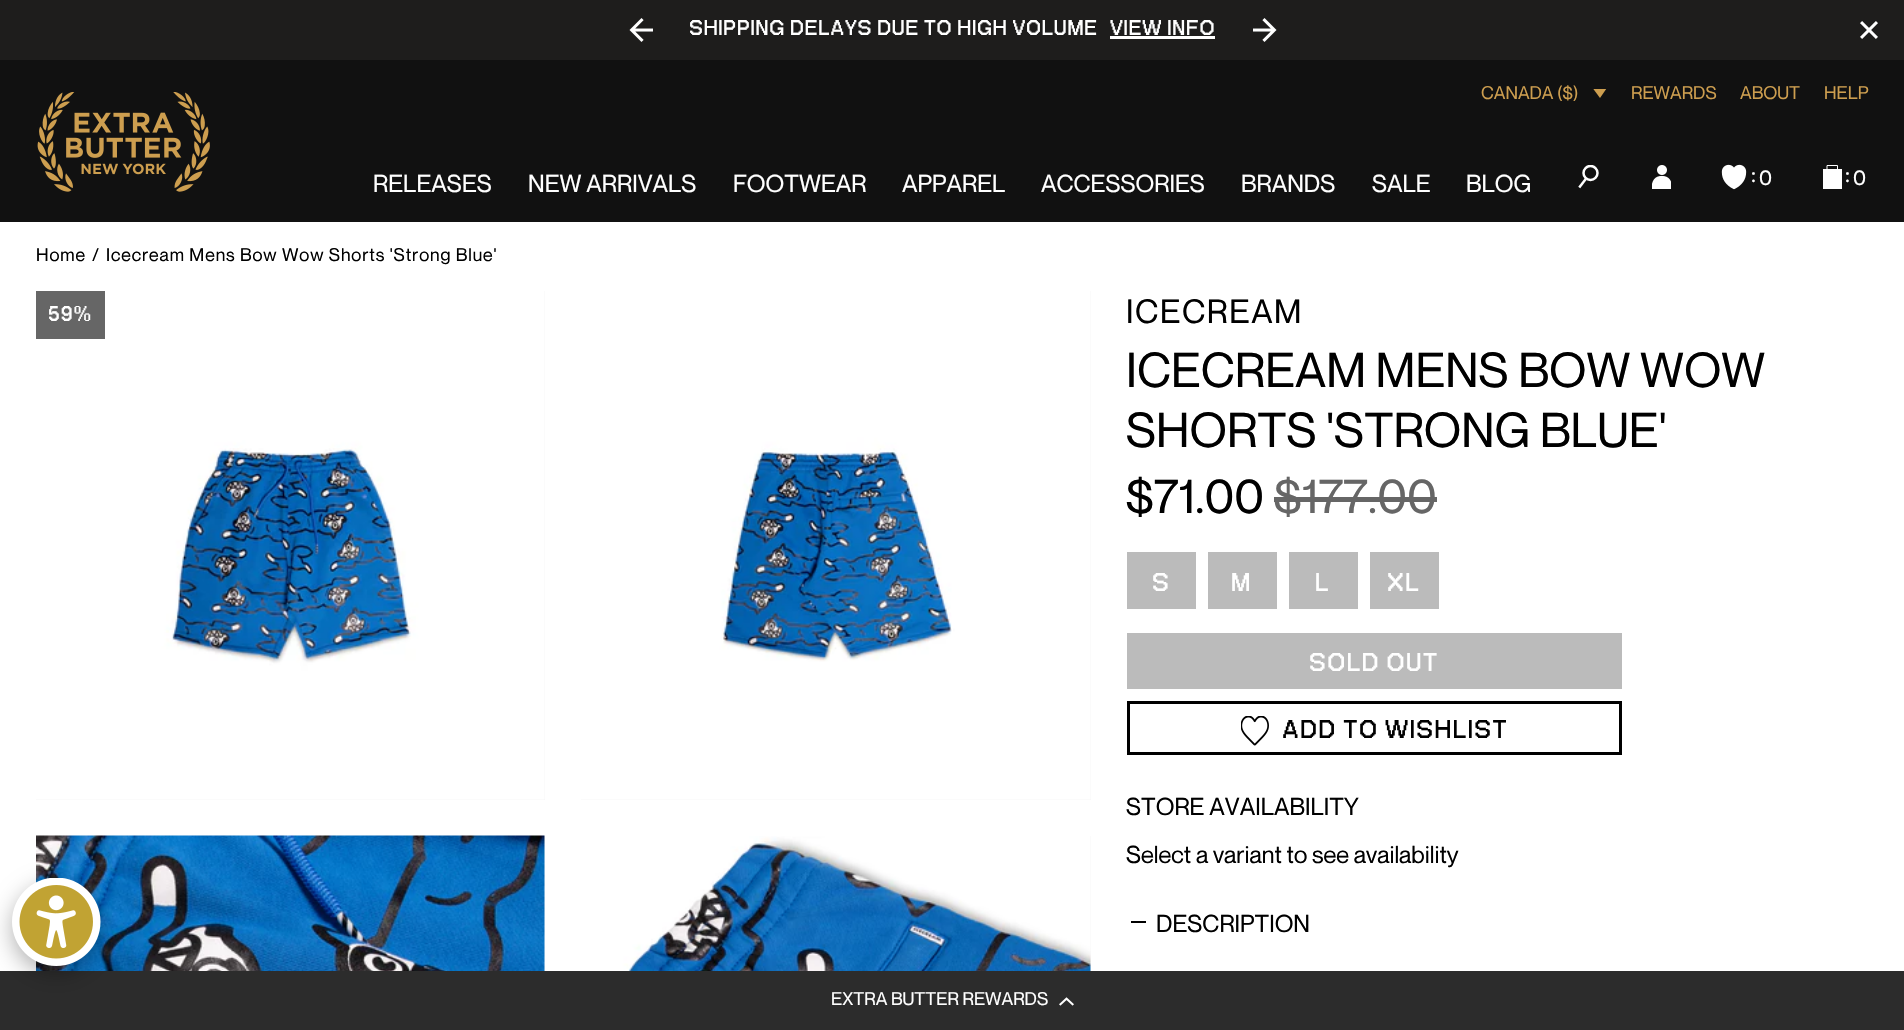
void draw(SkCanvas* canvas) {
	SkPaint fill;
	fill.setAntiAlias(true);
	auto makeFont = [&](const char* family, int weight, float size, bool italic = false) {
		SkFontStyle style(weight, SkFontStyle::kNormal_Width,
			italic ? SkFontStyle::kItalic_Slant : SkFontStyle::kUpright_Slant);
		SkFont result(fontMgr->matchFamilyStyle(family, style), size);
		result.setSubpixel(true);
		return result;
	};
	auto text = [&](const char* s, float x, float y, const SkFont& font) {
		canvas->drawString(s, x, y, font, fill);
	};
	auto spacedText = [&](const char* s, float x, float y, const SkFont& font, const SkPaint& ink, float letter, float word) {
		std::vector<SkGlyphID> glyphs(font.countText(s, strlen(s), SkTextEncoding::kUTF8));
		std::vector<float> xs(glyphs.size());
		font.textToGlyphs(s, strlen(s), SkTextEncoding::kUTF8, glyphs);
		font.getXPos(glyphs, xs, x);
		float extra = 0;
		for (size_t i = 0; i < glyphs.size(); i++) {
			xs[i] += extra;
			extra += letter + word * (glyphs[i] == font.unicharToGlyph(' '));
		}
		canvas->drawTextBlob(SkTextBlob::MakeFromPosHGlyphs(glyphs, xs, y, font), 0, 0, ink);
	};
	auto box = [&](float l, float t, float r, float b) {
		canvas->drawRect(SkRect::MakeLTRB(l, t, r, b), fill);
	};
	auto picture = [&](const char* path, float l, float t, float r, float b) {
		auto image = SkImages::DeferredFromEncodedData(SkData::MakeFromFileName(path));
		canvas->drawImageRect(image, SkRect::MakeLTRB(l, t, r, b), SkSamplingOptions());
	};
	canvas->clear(0xFFFFFFFF);
	fill.setColor(0xFF1E1D1C);
	box(0, 0, 1904, 60);
	picture("image0.png", 629, 18, 653, 42);
	fill.setColor(0xFFFFFFFF);
	box(1110, 36, 1215, 39);
	picture("image1.png", 1253, 18, 1277, 42);
	picture("image2.png", 1860, 21, 1878, 39);
	fill.setColor(0xFF111111);
	box(0, 60, 1904, 222);
	canvas->save();
	canvas->clipRect(SkRect::MakeLTRB(1593, 89, 1607, 99));
	fill.setColor(0xFFCD9E4F);
	canvas->drawPath(SkPathBuilder(SkPathFillType::kEvenOdd).moveTo(1593, 88.5f).lineTo(1606.5f, 88.5f).lineTo(1600, 98).close().detach(), fill);
	canvas->restore();
	picture("image3.png", 37, 92, 210, 192);
	canvas->save();
	canvas->clipRect(SkRect::MakeLTRB(1578, 165, 1601, 189));
	fill.setStyle(SkPaint::kStroke_Style);
	fill.setStrokeWidth(2.5f);
	fill.setColor(0xFFFFFFFF);
	canvas->drawCircle(1590.5f, 173, 7, fill);
	canvas->restore();
	fill.setStrokeCap(SkPaint::kSquare_Cap);
	canvas->drawPath(SkPathBuilder().moveTo(1585, 180).lineTo(1580, 186.5f).detach(), fill);
	picture("image4.png", 1652, 165, 1671, 189);
	picture("image5.png", 1721, 164, 1747, 190);
	fill.setStyle(SkPaint::kFill_Style);
	box(1823, 169, 1842, 189);
	fill.setStyle(SkPaint::kStroke_Style);
	fill.setStrokeWidth(1);
	fill.setStrokeCap(SkPaint::kButt_Cap);
	canvas->drawPath(SkPathBuilder().moveTo(1827, 165.5f).lineTo(1837.5f, 165.5f).lineTo(1837.5f, 173).lineTo(1827, 173).close().detach(), fill);
	fill.setStyle(SkPaint::kFill_Style);
	fill.setColor(0xFFF6F6F7);
	box(36, 291, 545, 800);
	picture("image6.png", 36, 291, 545, 800);
	box(581, 291, 1091, 800);
	picture("image7.png", 581, 291, 1091, 800);
	box(544, 836, 545, 971);
	picture("image8.png", 36, 835, 545, 971);
	box(1090, 836, 1091, 971);
	picture("image9.png", 580, 836, 1091, 971);
	fill.setColor(0xFF666666);
	box(36, 291, 105, 339);
	box(1274, 497, 1437, 502);
	fill.setColor(0xFFBBBBBB);
	box(1127, 552, 1196, 609);
	box(1208, 552, 1277, 609);
	box(1289, 552, 1358, 609);
	box(1370, 552, 1439, 609);
	box(1127, 633, 1622, 689);
	fill.setStyle(SkPaint::kStroke_Style);
	fill.setStrokeWidth(3);
	fill.setColor(0xFF000000);
	canvas->drawRect(SkRect::MakeLTRB(1128.5f, 702.5f, 1620.5f, 753.5f), fill);
	picture("image10.png", 1241, 716, 1269, 746);
	fill.setStyle(SkPaint::kFill_Style);
	box(1131, 921, 1146, 923);
	fill.setColor(0xFF2C2C2C);
	box(0, 971, 1904, 1030);
	picture("image11.png", 1059, 997, 1074, 1006);
	fill.setColor(0x4D000000);
	fill.setMaskFilter(SkMaskFilter::MakeBlur(kNormal_SkBlurStyle, 11));
	canvas->drawRoundRect(SkRect::MakeLTRB(12, 885, 101, 974), 44.5f, 44.5f, fill);
	fill.setMaskFilter(nullptr);
	picture("image12.png", 12, 878, 101, 966);
	auto font1 = makeFont("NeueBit", 700, 30);
	fill.setColor(0xFFFFFFFF);
	spacedText("SHIPPING DELAYS DUE TO HIGH VOLUME", 689, 35, font1, fill, 0.75f, 0);
	spacedText("VIEW INFO", 1110, 35, font1, fill, 0.75f, 0);
	auto font2 = makeFont("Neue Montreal", 400, 18);
	fill.setColor(0xFFCD9E4F);
	text("CANADA ($)", 1481, 99, font2);
	text("REWARDS", 1631, 99, font2);
	text("ABOUT", 1740, 99, font2);
	text("HELP", 1824, 99, font2);
	auto font3 = makeFont("Neue Montreal", 400, 24);
	fill.setColor(0xFFFFFFFF);
	text("RELEASES", 373, 192, font3);
	text("NEW ARRIVALS", 528, 192, font3);
	text("FOOTWEAR", 733, 192, font3);
	text("APPAREL", 902, 192, font3);
	text("ACCESSORIES", 1041, 192, font3);
	text("BRANDS", 1241, 192, font3);
	text("SALE", 1372, 192, font3);
	text("BLOG", 1466, 192, font3);
	text(":", 1751, 182, font3);
	auto font4 = makeFont("Neue Montreal", 400, 21);
	spacedText("0", 1759, 185, font4, fill, 0.9f, 0);
	text(":", 1845, 182, font3);
	spacedText("0", 1853, 185, font4, fill, 0.9f, 0);
	fill.setColor(0xFF000000);
	spacedText("Home", 36, 261, font2, fill, 0.9f, 0);
	spacedText("/", 92, 261, font2, fill, 0.9f, 0);
	spacedText("Icecream Mens Bow Wow Shorts 'Strong Blue'", 106, 261, font2, fill, 0.9f, 0);
	fill.setColor(0xFFFFFFFF);
	spacedText("59%", 48, 321, font1, fill, 1, 0);
	auto font5 = makeFont("Neue Montreal", 400, 33);
	fill.setColor(0xFF000000);
	spacedText("ICECREAM", 1126, 323, font5, fill, 1.5f, 0);
	auto font6 = makeFont("Neue Montreal", 400, 48);
	text("ICECREAM MENS BOW WOW", 1126, 387, font6);
	text("SHORTS 'STRONG BLUE'", 1126, 447, font6);
	text("$71.00", 1126, 513, font6);
	fill.setColor(0xFF666666);
	text("$177.00", 1274, 513, font6);
	auto font7 = makeFont("NeueBit", 700, 36);
	fill.setColor(0xFFFFFFFF);
	spacedText("S", 1152, 591, font7, fill, 1.5f, 0);
	spacedText("M", 1231, 591, font7, fill, 1.5f, 0);
	spacedText("L", 1315, 591, font7, fill, 1.5f, 0);
	spacedText("XL", 1387, 591, font7, fill, 1.5f, 0);
	spacedText("SOLD OUT", 1309, 671, font7, fill, 1.5f, 0);
	fill.setColor(0xFF000000);
	spacedText("ADD TO WISHLIST", 1282, 738, font7, fill, 1.5f, 0);
	text("STORE AVAILABILITY", 1126, 815, font3);
	text("Select a variant to see availability", 1126, 863, font3);
	text("DESCRIPTION", 1156, 932, font3);
	fill.setColor(0xFFFFFFFF);
	text("EXTRA BUTTER REWARDS", 831, 1005, font2);
}
